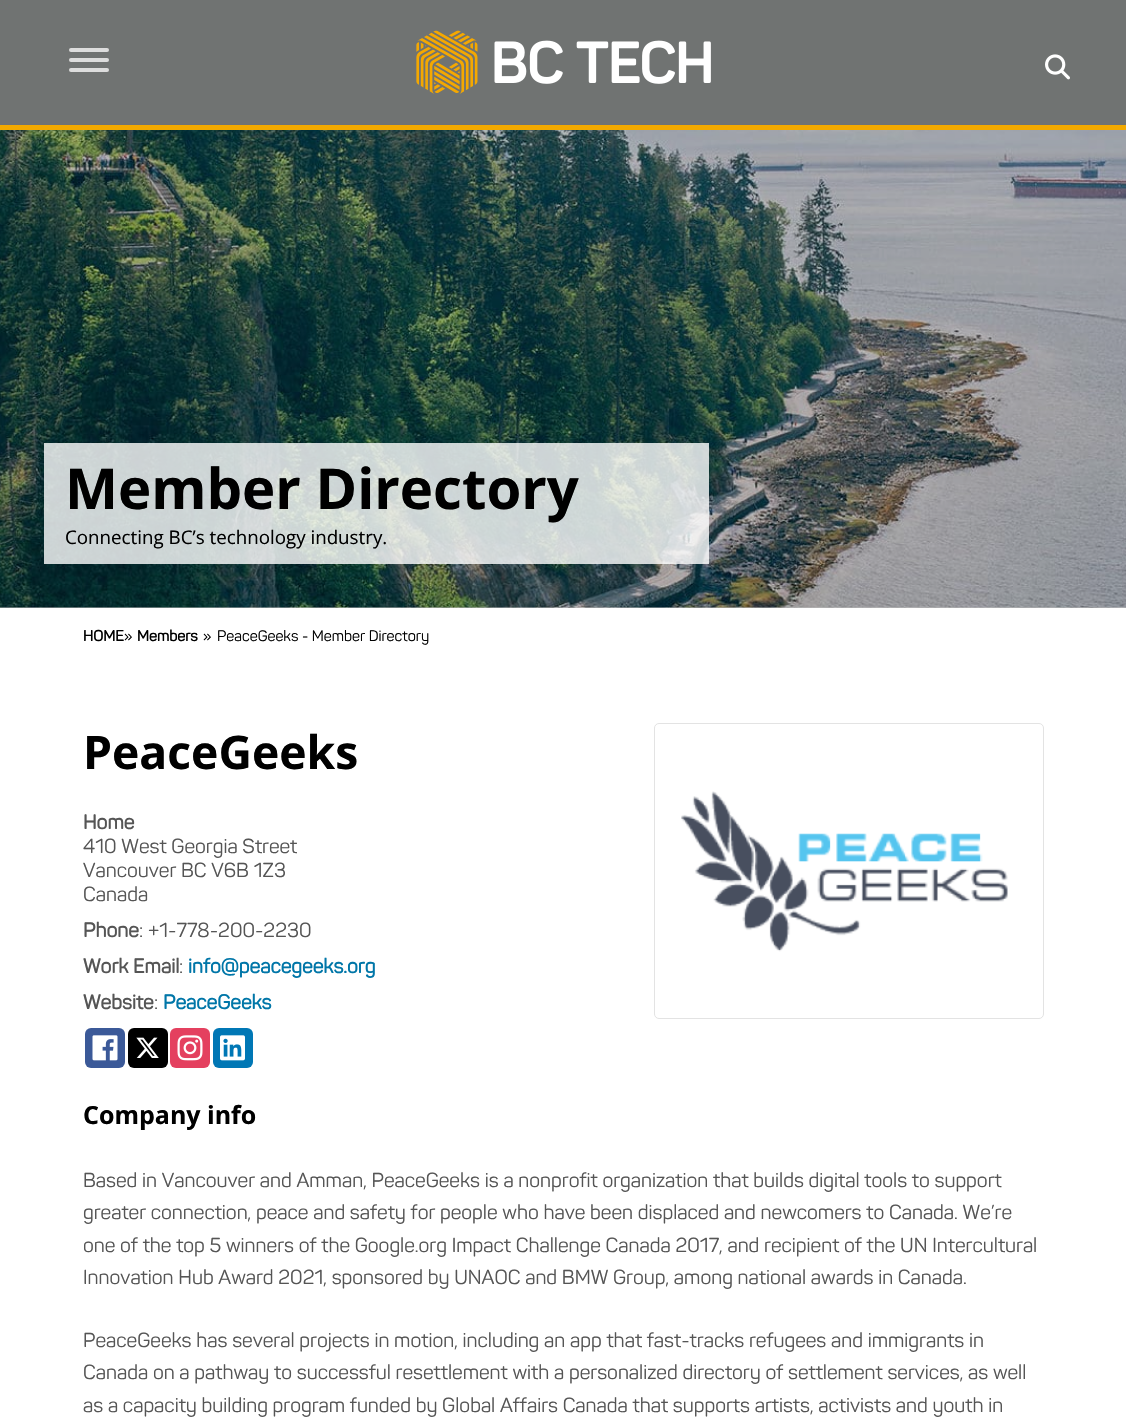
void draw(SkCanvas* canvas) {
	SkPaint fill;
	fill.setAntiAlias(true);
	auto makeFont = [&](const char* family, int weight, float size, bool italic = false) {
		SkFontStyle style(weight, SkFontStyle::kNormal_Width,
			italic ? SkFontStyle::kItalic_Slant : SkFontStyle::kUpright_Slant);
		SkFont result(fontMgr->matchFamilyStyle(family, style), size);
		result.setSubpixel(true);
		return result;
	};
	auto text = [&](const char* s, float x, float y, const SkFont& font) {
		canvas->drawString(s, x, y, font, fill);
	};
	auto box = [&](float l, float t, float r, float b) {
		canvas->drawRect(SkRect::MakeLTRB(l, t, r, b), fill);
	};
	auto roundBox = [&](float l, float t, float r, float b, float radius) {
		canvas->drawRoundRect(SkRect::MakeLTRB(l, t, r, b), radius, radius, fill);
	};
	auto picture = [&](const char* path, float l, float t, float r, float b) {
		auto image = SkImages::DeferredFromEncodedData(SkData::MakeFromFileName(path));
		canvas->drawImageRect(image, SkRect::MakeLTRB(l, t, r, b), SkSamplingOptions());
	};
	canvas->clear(0xFFFFFFFF);
	fill.setColor(0xFFBFBFBF);
	box(0, 607, 1126, 608);
	fill.setColor(0xFF707372);
	box(0, 0, 1126, 125);
	fill.setColor(0xFFF2A900);
	box(0, 125, 1126, 130);
	fill.setColor(0xFFDDDDDD);
	roundBox(69, 48, 109, 52, 2);
	roundBox(69, 58, 109, 62, 2);
	roundBox(69, 68, 109, 72, 2);
	picture("image0.png", 416, 30, 711, 94);
	picture("image1.png", 1045, 54, 1070, 80);
	picture("image2.png", 0, 130, 1126, 608);
	fill.setColor(0xCCFFFFFF);
	box(44, 443, 709, 564);
	fill.setColor(0xFF3B5998);
	roundBox(85, 1028, 125, 1068, 6);
	picture("image3.png", 92, 1035, 118, 1061);
	fill.setColor(0xFF000000);
	roundBox(128, 1028, 168, 1068, 6);
	picture("image4.png", 136, 1037, 159, 1058);
	fill.setColor(0xFFE4405F);
	roundBox(170, 1028, 210, 1068, 6);
	picture("image5.png", 177, 1035, 203, 1061);
	fill.setColor(0xFF0077B5);
	roundBox(213, 1028, 253, 1068, 6);
	picture("image6.png", 220, 1035, 245, 1061);
	fill.setStyle(SkPaint::kStroke_Style);
	fill.setStrokeWidth(1);
	fill.setColor(0xFFE3E3E3);
	canvas->drawRoundRect(SkRect::MakeLTRB(654.5f, 723.5f, 1043.5f, 1018.5f), 4.5f, 4.5f, fill);
	picture("image7.png", 681, 791, 1008, 952);
	auto font1 = makeFont("Open Sans", 700, 56.25f);
	fill.setStyle(SkPaint::kFill_Style);
	fill.setColor(0xFF000000);
	text("Member Directory", 65, 509, font1);
	auto font2 = makeFont("Open Sans", 400, 18.75f);
	text("Connecting BC’s technology industry.", 65, 544, font2);
	auto font3 = makeFont("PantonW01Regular", 700, 15);
	text("HOME", 83, 641, font3);
	auto font4 = makeFont("PantonW01Regular", 400, 15);
	text("»", 124, 641, font4);
	text("Members", 137, 641, font3);
	text("»", 203, 641, font4);
	text("PeaceGeeks - Member Directory", 217, 641, font4);
	auto font5 = makeFont("Open Sans", 700, 46.25f);
	text("PeaceGeeks", 83, 769, font5);
	auto font6 = makeFont("PantonW01Regular", 700, 20);
	fill.setColor(0xFF555555);
	text("Home", 83, 829, font6);
	auto font7 = makeFont("PantonW01Regular", 400, 20);
	text("410 West Georgia Street", 83, 853, font7);
	text("Vancouver BC V6B 1Z3", 83, 877, font7);
	text("Canada", 83, 901, font7);
	text("Phone", 83, 937, font6);
	text(": +1-778-200-2230", 139, 937, font7);
	text("Work Email", 83, 973, font6);
	text(":", 179, 973, font7);
	fill.setColor(0xFF0076A8);
	text("info@peacegeeks.org", 188, 973, font6);
	fill.setColor(0xFF555555);
	text("Website", 83, 1009, font6);
	text(":", 154, 1009, font7);
	fill.setColor(0xFF0076A8);
	text("PeaceGeeks", 163, 1009, font6);
	auto font8 = makeFont("Open Sans", 700, 25);
	fill.setColor(0xFF000000);
	text("Company info", 83, 1124, font8);
	fill.setColor(0xFF555555);
	text("Based in Vancouver and Amman, PeaceGeeks is a nonprofit organization that builds digital tools to support", 83, 1187, font7);
	text("greater connection, peace and safety for people who have been displaced and newcomers to Canada. We’re", 83, 1219, font7);
	text("one of the top 5 winners of the Google.org Impact Challenge Canada 2017, and recipient of the UN Intercultural", 83, 1252, font7);
	text("Innovation Hub Award 2021, sponsored by UNAOC and BMW Group, among national awards in Canada.", 83, 1284, font7);
	text("PeaceGeeks has several projects in motion, including an app that fast-tracks refugees and immigrants in", 83, 1347, font7);
	text("Canada on a pathway to successful resettlement with a personalized directory of settlement services, as well", 83, 1379, font7);
	text("as a capacity building program funded by Global Affairs Canada that supports artists, activists and youth in", 83, 1412, font7);
}
